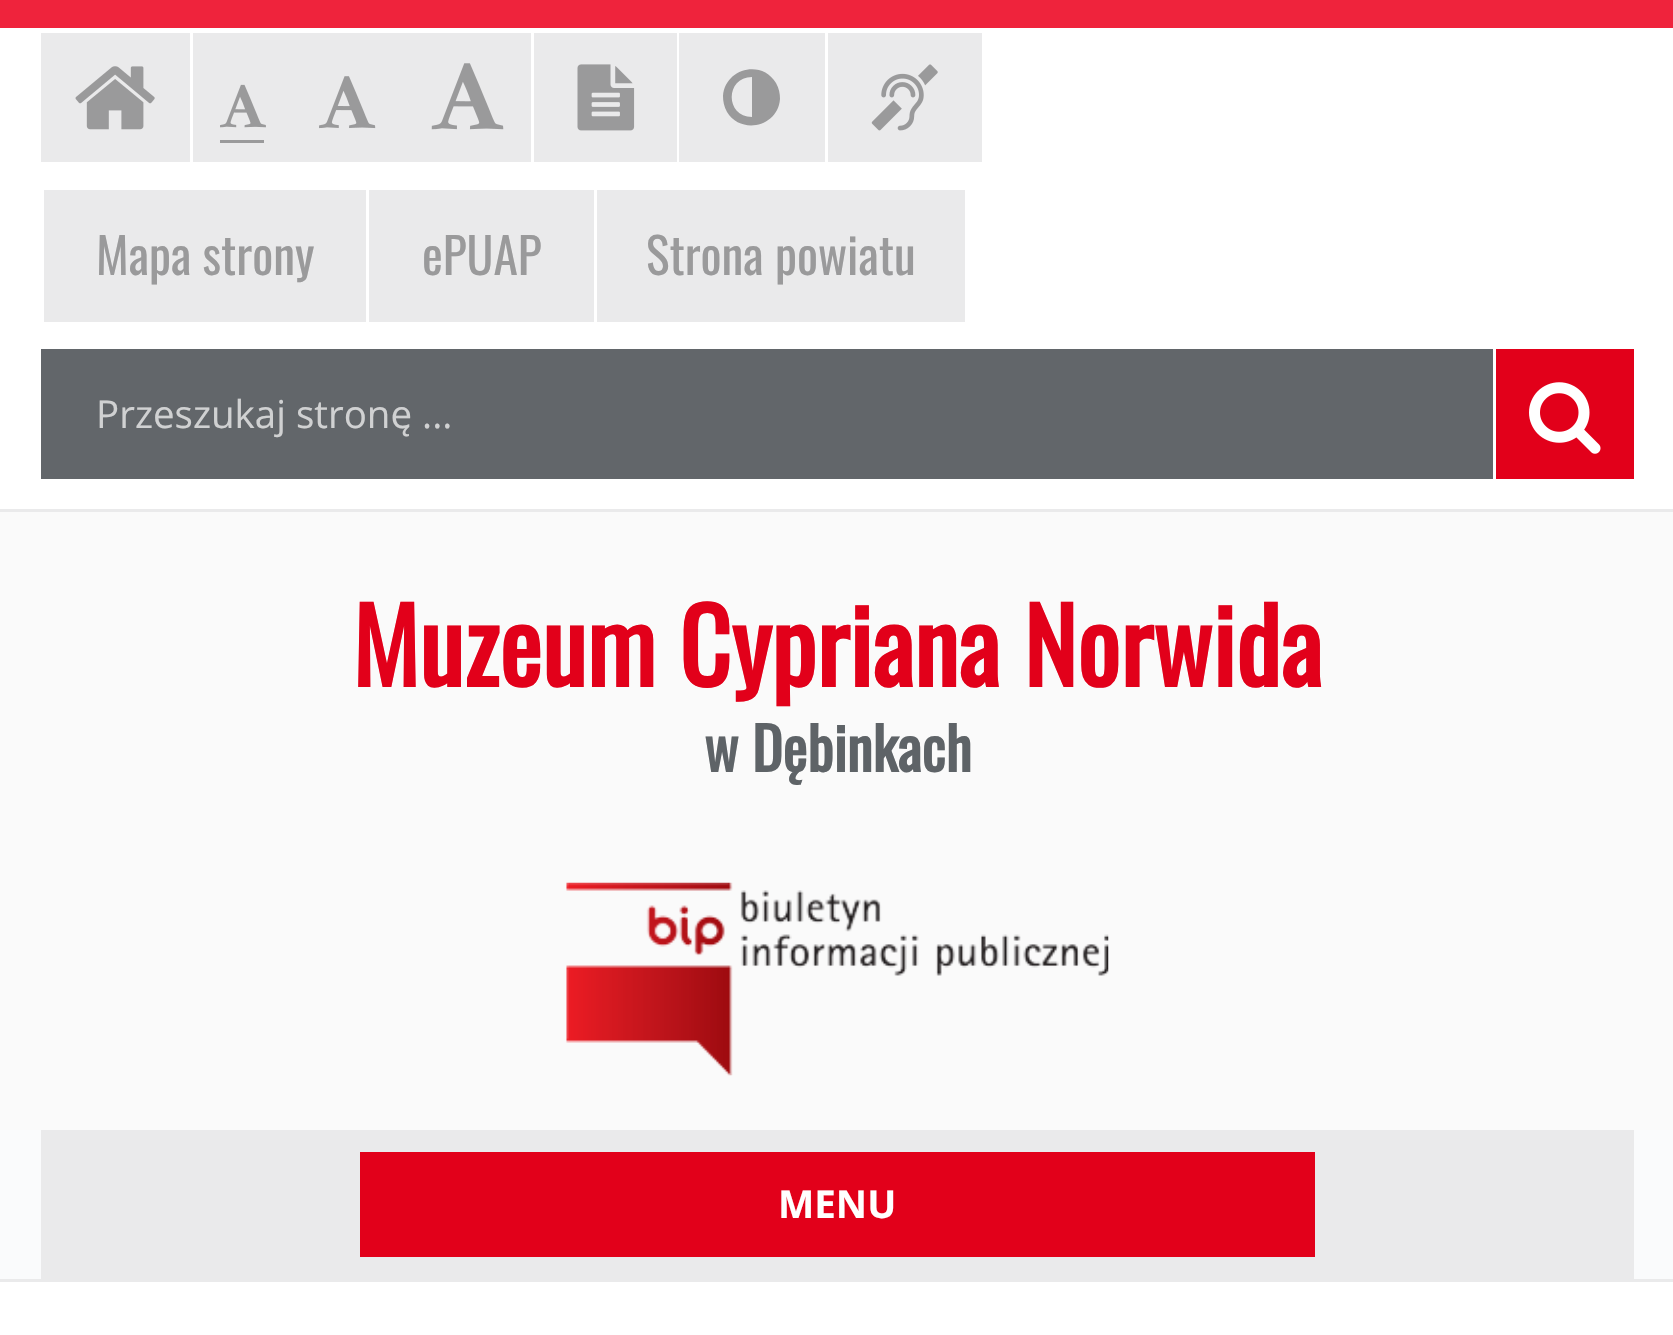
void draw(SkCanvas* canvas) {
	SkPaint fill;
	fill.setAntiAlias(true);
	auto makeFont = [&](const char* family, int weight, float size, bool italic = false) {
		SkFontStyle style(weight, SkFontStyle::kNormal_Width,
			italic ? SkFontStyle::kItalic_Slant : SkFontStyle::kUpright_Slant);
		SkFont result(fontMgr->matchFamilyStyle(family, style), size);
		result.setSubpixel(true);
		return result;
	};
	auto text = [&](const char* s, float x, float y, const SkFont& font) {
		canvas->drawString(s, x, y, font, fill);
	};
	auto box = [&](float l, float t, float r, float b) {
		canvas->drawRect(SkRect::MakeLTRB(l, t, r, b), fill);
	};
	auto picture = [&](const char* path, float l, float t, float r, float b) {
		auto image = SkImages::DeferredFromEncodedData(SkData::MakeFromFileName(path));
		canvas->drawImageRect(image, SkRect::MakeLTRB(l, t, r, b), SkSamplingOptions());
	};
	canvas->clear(0xFFFFFFFF);
	fill.setColor(0xFFEF233C);
	box(0, 0, 1673, 28);
	fill.setColor(0xFFEAEAEB);
	box(41, 33, 190, 162);
	picture("image0.png", 75, 66, 155, 130);
	box(193, 33, 531, 162);
	fill.setColor(0xFF9A9A9B);
	box(220, 140, 264, 143);
	picture("image1.png", 220, 84, 266, 128);
	picture("image2.png", 319, 76, 376, 129);
	picture("image3.png", 431, 63, 504, 130);
	fill.setColor(0xFFEAEAEB);
	box(534, 33, 677, 162);
	picture("image4.png", 577, 64, 635, 131);
	box(679, 33, 825, 162);
	fill.setColor(0xFF9A9A9B);
	canvas->drawPath(SkPathBuilder().moveTo(752, 117).lineTo(752, 77).cubicTo(725, 77, 725, 117, 752, 117).close().moveTo(776, 83).cubicTo(779, 88, 780, 94, 780, 99).cubicTo(778, 127, 741, 135, 727, 112).cubicTo(724, 107, 723, 101, 723, 96).cubicTo(725, 68, 762, 59, 776, 83).close().detach(), fill);
	fill.setColor(0xFFEAEAEB);
	box(828, 33, 982, 162);
	picture("image5.png", 871, 64, 938, 131);
	box(44, 190, 366, 322);
	box(369, 190, 594, 322);
	box(597, 190, 965, 322);
	fill.setColor(0xFF62666A);
	box(41, 349, 1493, 479);
	fill.setColor(0xFFE2001A);
	box(1496, 349, 1634, 479);
	picture("image6.png", 1529, 382, 1601, 454);
	fill.setColor(0xFFFAFAFA);
	box(0, 512, 1673, 1130);
	fill.setColor(0xFFEAEAEB);
	box(0, 509, 1673, 512);
	picture("image7.png", 566, 882, 1109, 1076);
	fill.setColor(0xFFFAFBFC);
	box(0, 1130, 1673, 1279);
	fill.setColor(0xFFEAEAEB);
	box(0, 1279, 1673, 1282);
	box(41, 1130, 1634, 1279);
	fill.setColor(0xFFE2001A);
	box(360, 1152, 1315, 1257);
	auto font1 = makeFont("Oswald", 400, 49.5f);
	fill.setColor(0xFF9A9A9B);
	text("Mapa strony", 96, 275, font1);
	text("ePUAP", 422, 275, font1);
	text("Strona powiatu", 646, 275, font1);
	auto font2 = makeFont("Open Sans", 400, 38.5f);
	fill.setColor(0xFFD0D1D2);
	text("Przeszukaj stronę ...", 96, 428, font2);
	auto font3 = makeFont("Oswald", 700, 101.6f);
	fill.setColor(0xFFE2001A);
	text("Muzeum Cypriana Norwida", 352, 687, font3);
	auto font4 = makeFont("Oswald", 700, 58.5f);
	fill.setColor(0xFF5E6367);
	text("w Dębinkach", 704, 772, font4);
	auto font5 = makeFont("Open Sans", 700, 38.5f);
	fill.setColor(0xFFFFFFFF);
	text("MENU", 778, 1218, font5);
}
